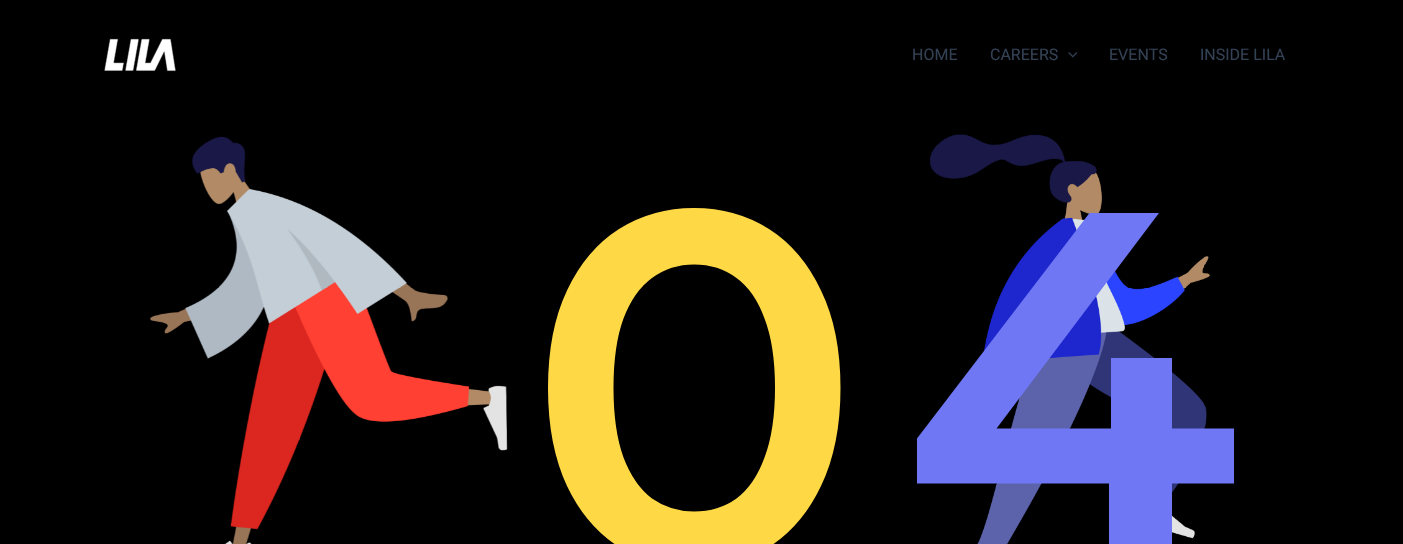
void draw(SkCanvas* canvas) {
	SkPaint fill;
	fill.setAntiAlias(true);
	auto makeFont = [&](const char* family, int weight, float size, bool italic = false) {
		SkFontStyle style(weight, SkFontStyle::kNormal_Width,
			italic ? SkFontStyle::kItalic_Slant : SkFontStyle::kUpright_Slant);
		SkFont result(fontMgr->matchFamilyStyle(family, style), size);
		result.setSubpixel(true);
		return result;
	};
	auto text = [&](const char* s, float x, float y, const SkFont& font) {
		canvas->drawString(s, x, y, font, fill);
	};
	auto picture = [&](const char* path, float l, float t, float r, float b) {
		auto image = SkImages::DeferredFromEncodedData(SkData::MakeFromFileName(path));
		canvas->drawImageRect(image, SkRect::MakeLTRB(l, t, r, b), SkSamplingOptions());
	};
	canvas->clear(0xFF000000);
	picture("image0.png", 104, 38, 176, 72);
	picture("image1.png", 1068, 52, 1077, 58);
	picture("image2.png", 149, 136, 508, 544);
	picture("image3.png", 929, 134, 1210, 544);
	auto font1 = makeFont("Roboto", 400, 16);
	fill.setColor(0xFF334155);
	text("HOME", 912, 60, font1);
	text("CAREERS", 990, 60, font1);
	text("EVENTS", 1109, 60, font1);
	text("INSIDE LILA", 1200, 60, font1);
	auto font2 = makeFont("Montserrat", 600, 500);
	fill.setColor(0xFFFFD845);
	text("0", 526, 563, font2);
	fill.setColor(0xFF6F77F4);
	text("4", 900, 563, font2);
}
